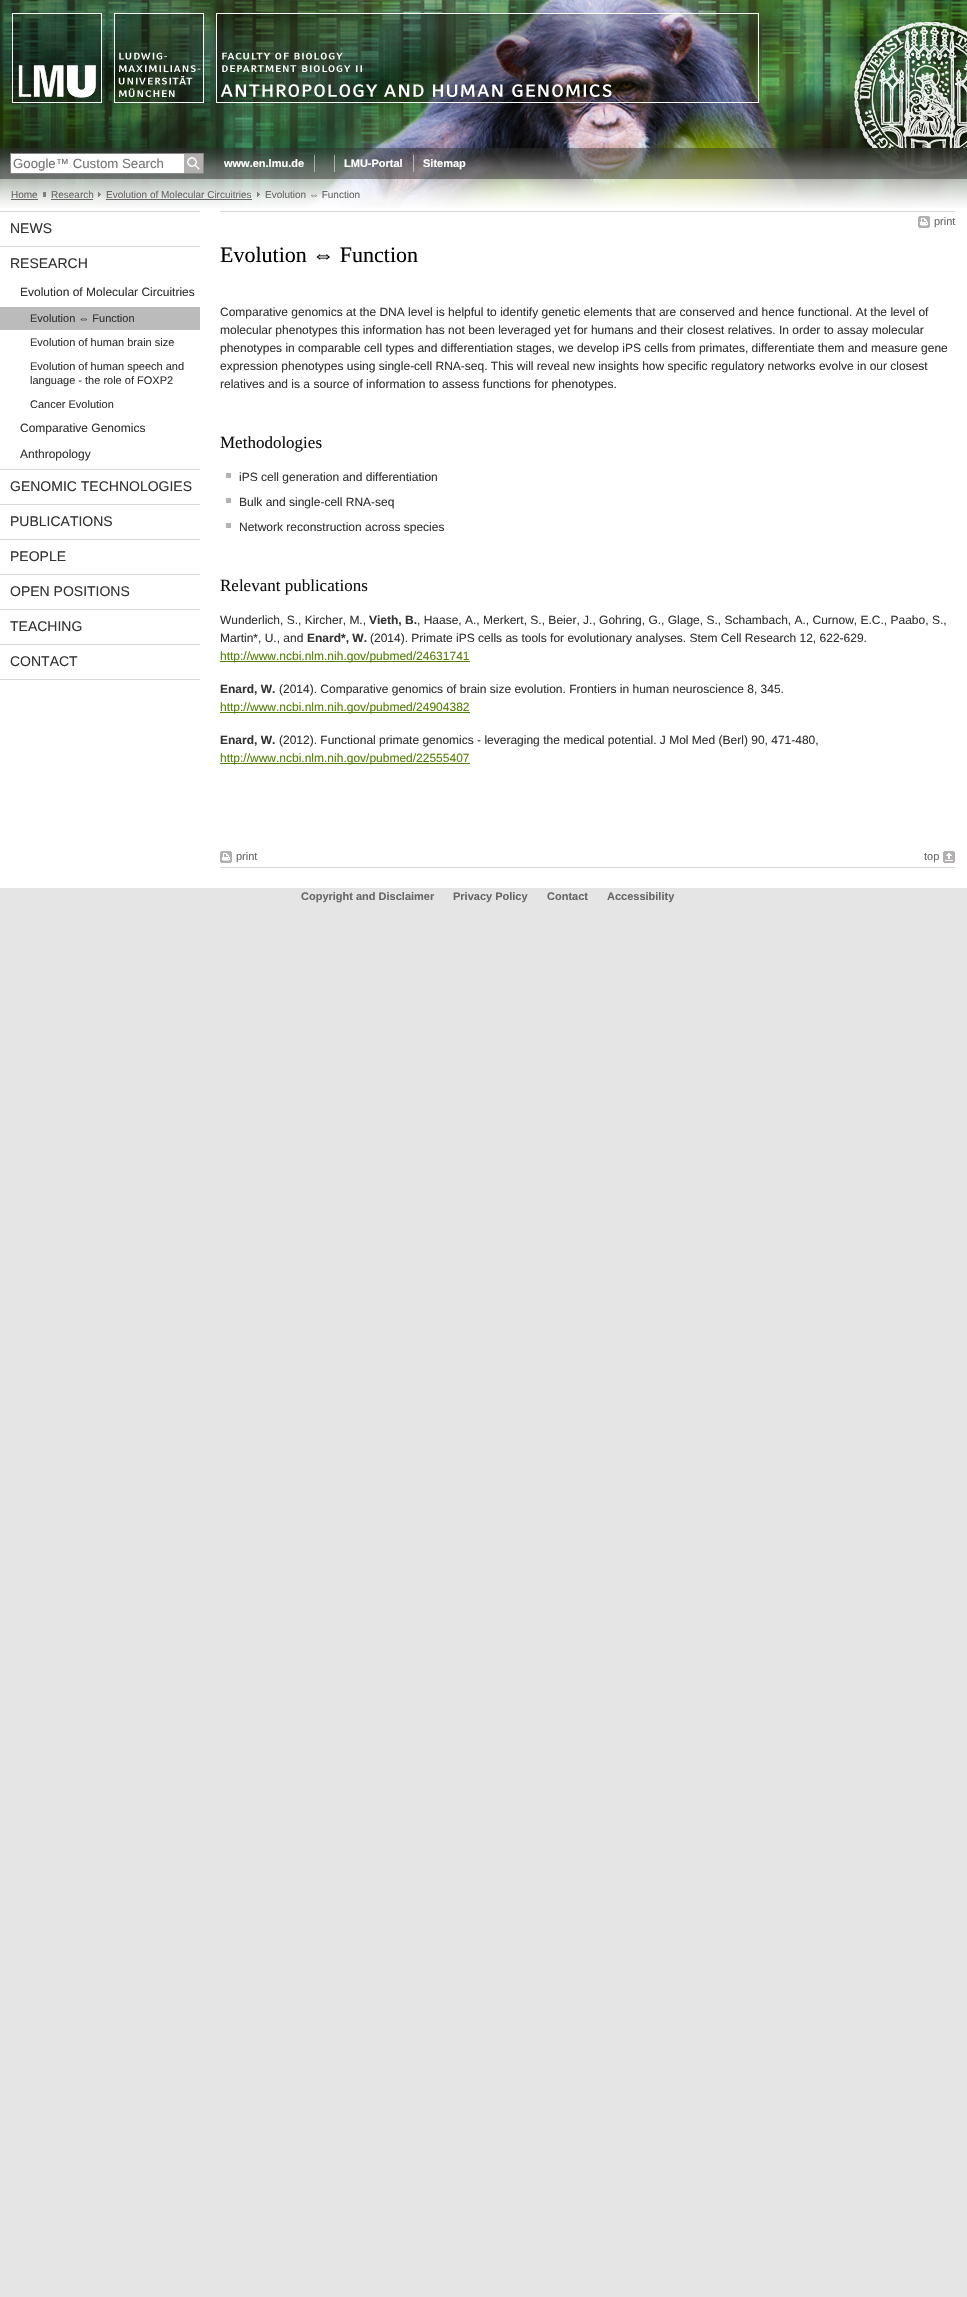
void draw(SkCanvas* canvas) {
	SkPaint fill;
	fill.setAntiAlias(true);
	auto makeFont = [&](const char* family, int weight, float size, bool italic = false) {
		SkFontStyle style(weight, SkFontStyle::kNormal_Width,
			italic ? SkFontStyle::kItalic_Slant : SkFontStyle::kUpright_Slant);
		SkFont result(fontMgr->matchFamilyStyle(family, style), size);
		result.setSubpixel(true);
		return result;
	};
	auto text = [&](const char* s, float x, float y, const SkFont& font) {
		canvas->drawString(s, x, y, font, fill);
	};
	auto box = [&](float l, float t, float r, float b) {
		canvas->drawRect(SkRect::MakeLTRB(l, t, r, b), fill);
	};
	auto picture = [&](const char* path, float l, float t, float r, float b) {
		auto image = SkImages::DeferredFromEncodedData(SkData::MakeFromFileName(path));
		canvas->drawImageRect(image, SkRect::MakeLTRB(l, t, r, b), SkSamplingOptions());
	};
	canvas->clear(0xFFE5E5E5);
	fill.setColor(0xFFFFFFFF);
	box(0, 208, 967, 888);
	picture("image0.png", 0, 0, 967, 148);
	picture("image1.png", 0, 148, 967, 179);
	box(11, 154, 184, 173);
	fill.setStyle(SkPaint::kStroke_Style);
	fill.setStrokeWidth(1);
	fill.setColor(0xFF888888);
	canvas->drawRect(SkRect::MakeLTRB(10.5f, 153.5f, 203.5f, 173.5f), fill);
	picture("image2.png", 184, 154, 203, 173);
	fill.setStyle(SkPaint::kFill_Style);
	fill.setColor(0x80FFFFFF);
	box(314, 155, 315, 172);
	box(334, 155, 335, 172);
	box(413, 155, 414, 172);
	picture("image3.png", 0, 179, 967, 208);
	fill.setColor(0xFF666666);
	box(11, 199, 38, 200);
	fill.setColor(0xFF7F7F7F);
	box(43, 192, 46, 197);
	fill.setColor(0xFF666666);
	box(51, 199, 93, 200);
	picture("image4.png", 98, 192, 102, 197);
	box(106, 199, 252, 200);
	picture("image5.png", 257, 192, 261, 197);
	fill.setColor(0xFFD8D8D8);
	box(0, 211, 200, 212);
	box(0, 246, 200, 247);
	box(0, 469, 200, 470);
	fill.setColor(0xFFBBBBBB);
	box(0, 307, 200, 330);
	fill.setColor(0xFFD8D8D8);
	box(0, 504, 200, 505);
	box(0, 539, 200, 540);
	box(0, 574, 200, 575);
	box(0, 609, 200, 610);
	box(0, 644, 200, 645);
	box(0, 679, 200, 680);
	box(220, 211, 955, 212);
	picture("image6.png", 918, 216, 930, 228);
	fill.setColor(0xFFB3B3B3);
	box(226, 473, 231, 478);
	box(226, 498, 231, 503);
	box(226, 523, 231, 528);
	fill.setColor(0xFF558005);
	box(220, 661, 470, 662);
	box(220, 712, 470, 713);
	box(220, 763, 470, 764);
	fill.setColor(0xFFD8D8D8);
	box(220, 867, 955, 868);
	picture("image6.png", 220, 851, 232, 863);
	picture("image7.png", 943, 851, 955, 863);
	auto font1 = makeFont("Liberation Sans", 400, 13.25f);
	fill.setColor(0xFF757575);
	text("Google™ Custom Search", 13, 168, font1);
	auto font2 = makeFont("Liberation Sans", 700, 11);
	fill.setColor(0xFFFFFFFF);
	text("www.en.lmu.de", 224, 167, font2);
	text("LMU-Portal", 344, 167, font2);
	text("Sitemap", 423, 167, font2);
	auto font3 = makeFont("Liberation Sans", 400, 10);
	fill.setColor(0xFF666666);
	text("Home", 11, 198, font3);
	text("Research", 51, 198, font3);
	text("Evolution of Molecular Circuitries", 106, 198, font3);
	text("Evolution ⇔ Function", 265, 198, font3);
	auto font4 = makeFont("Liberation Sans", 400, 14);
	fill.setColor(0xFF333333);
	text("NEWS", 10, 233, font4);
	text("RESEARCH", 10, 268, font4);
	auto font5 = makeFont("Liberation Sans", 400, 12);
	text("Evolution of Molecular Circuitries", 20, 296, font5);
	auto font6 = makeFont("Liberation Sans", 400, 11);
	text("Evolution ⇔ Function", 30, 322, font6);
	text("Evolution of human brain size", 30, 346, font6);
	text("Evolution of human speech and", 30, 370, font6);
	text("language - the role of FOXP2", 30, 384, font6);
	text("Cancer Evolution", 30, 408, font6);
	text("Comparative Genomics", 20, 432, font5);
	text("Anthropology", 20, 458, font5);
	text("GENOMIC TECHNOLOGIES", 10, 491, font4);
	text("PUBLICATIONS", 10, 526, font4);
	text("PEOPLE", 10, 561, font4);
	text("OPEN POSITIONS", 10, 596, font4);
	text("TEACHING", 10, 631, font4);
	text("CONTACT", 10, 666, font4);
	fill.setColor(0xFF666666);
	text("print", 934, 225, font6);
	auto font7 = makeFont("Liberation Serif", 400, 22);
	fill.setColor(0xFF000000);
	text("Evolution ⇔ Function", 220, 262, font7);
	fill.setColor(0xFF333333);
	text("Comparative genomics at the DNA level is helpful to identify genetic elements that are conserved and hence functional. At the level of", 220, 316, font5);
	text("molecular phenotypes this information has not been leveraged yet for humans and their closest relatives. In order to assay molecular", 220, 334, font5);
	text("phenotypes in comparable cell types and differentiation stages, we develop iPS cells from primates, differentiate them and measure gene", 220, 352, font5);
	text("expression phenotypes using single-cell RNA-seq. This will reveal new insights how specific regulatory networks evolve in our closest", 220, 370, font5);
	text("relatives and is a source of information to assess functions for phenotypes.", 220, 388, font5);
	auto font8 = makeFont("Liberation Serif", 400, 17);
	fill.setColor(0xFF111111);
	text("Methodologies", 220, 448, font8);
	fill.setColor(0xFF333333);
	text("iPS cell generation and differentiation", 239, 481, font5);
	text("Bulk and single-cell RNA-seq", 239, 506, font5);
	text("Network reconstruction across species", 239, 531, font5);
	fill.setColor(0xFF111111);
	text("Relevant publications", 220, 591, font8);
	fill.setColor(0xFF333333);
	text("Wunderlich, S., Kircher, M.,", 220, 624, font5);
	auto font9 = makeFont("Liberation Sans", 700, 12);
	text("Vieth, B.", 369, 624, font9);
	text(", Haase, A., Merkert, S., Beier, J., Gohring, G., Glage, S., Schambach, A., Curnow, E.C., Paabo, S.,", 417, 624, font5);
	text("Martin*, U., and", 220, 642, font5);
	text("Enard*, W.", 307, 642, font9);
	text("(2014). Primate iPS cells as tools for evolutionary analyses. Stem Cell Research 12, 622-629.", 370, 642, font5);
	fill.setColor(0xFF558005);
	text("http://www.ncbi.nlm.nih.gov/pubmed/24631741", 220, 660, font5);
	fill.setColor(0xFF333333);
	text("Enard, W.", 220, 693, font9);
	text("(2014). Comparative genomics of brain size evolution. Frontiers in human neuroscience 8, 345.", 279, 693, font5);
	fill.setColor(0xFF558005);
	text("http://www.ncbi.nlm.nih.gov/pubmed/24904382", 220, 711, font5);
	fill.setColor(0xFF333333);
	text("Enard, W.", 220, 744, font9);
	text("(2012). Functional primate genomics - leveraging the medical potential. J Mol Med (Berl) 90, 471-480,", 279, 744, font5);
	fill.setColor(0xFF558005);
	text("http://www.ncbi.nlm.nih.gov/pubmed/22555407", 220, 762, font5);
	fill.setColor(0xFF666666);
	text("print", 236, 860, font6);
	text("top", 924, 860, font6);
	text("Copyright and Disclaimer", 301, 900, font2);
	text("Privacy Policy", 453, 900, font2);
	text("Contact", 547, 900, font2);
	text("Accessibility", 607, 900, font2);
}
